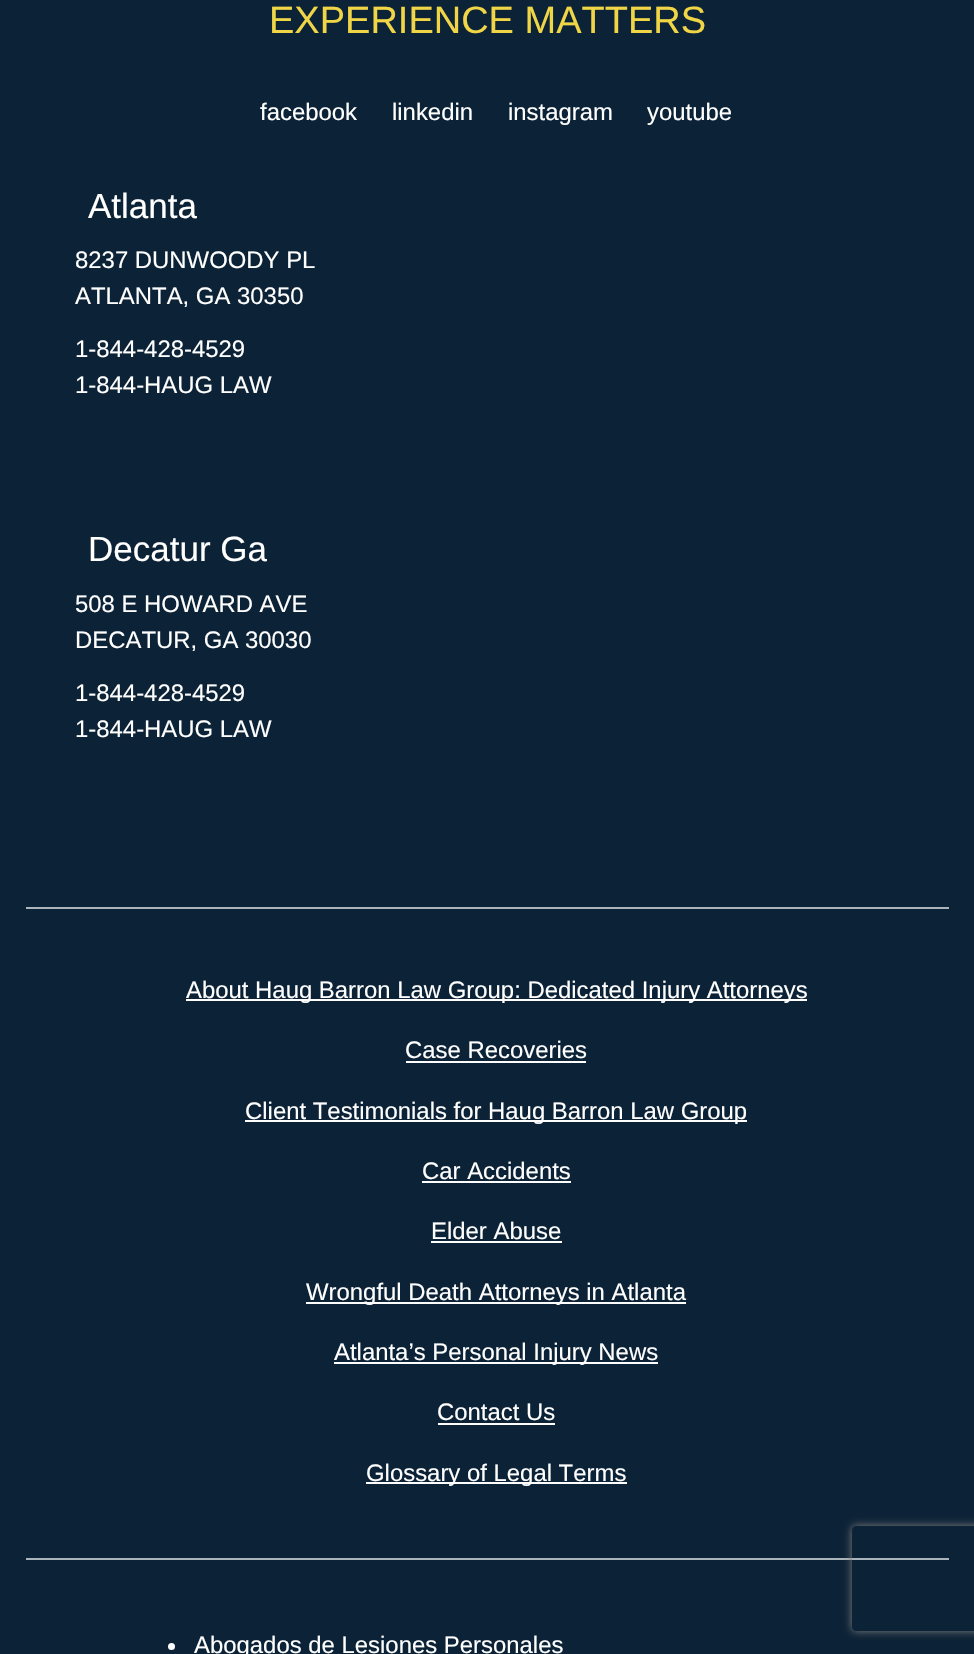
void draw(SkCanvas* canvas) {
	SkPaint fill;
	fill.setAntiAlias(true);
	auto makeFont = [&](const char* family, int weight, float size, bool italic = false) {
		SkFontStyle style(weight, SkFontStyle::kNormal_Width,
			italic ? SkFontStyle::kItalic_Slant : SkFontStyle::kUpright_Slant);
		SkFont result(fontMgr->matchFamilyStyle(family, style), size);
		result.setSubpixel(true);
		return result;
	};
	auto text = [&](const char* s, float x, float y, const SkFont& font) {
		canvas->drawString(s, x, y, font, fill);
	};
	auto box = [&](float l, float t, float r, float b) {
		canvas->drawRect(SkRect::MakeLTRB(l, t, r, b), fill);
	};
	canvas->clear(0xFF0C2236);
	fill.setColor(0xFFACB4BB);
	box(26, 907, 949, 909);
	box(26, 1558, 949, 1560);
	fill.setColor(0xFFFFFFFF);
	box(186, 999, 807, 1001);
	box(406, 1061, 586, 1063);
	box(245, 1120, 747, 1122);
	box(422, 1181, 571, 1183);
	box(431, 1241, 562, 1243);
	box(306, 1302, 686, 1304);
	box(334, 1362, 658, 1364);
	box(438, 1423, 555, 1425);
	box(366, 1482, 627, 1484);
	canvas->drawCircle(171.5f, 1646.5f, 3.5f, fill);
	canvas->save();
	canvas->clipPath(SkPathBuilder(SkPathFillType::kEvenOdd).moveTo(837, 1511).lineTo(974, 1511).lineTo(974, 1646).lineTo(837, 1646).close().moveTo(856, 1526).lineTo(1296, 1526).cubicTo(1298, 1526, 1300, 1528, 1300, 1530).lineTo(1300, 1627).cubicTo(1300, 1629, 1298, 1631, 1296, 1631).lineTo(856, 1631).cubicTo(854, 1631, 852, 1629, 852, 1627).lineTo(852, 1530).cubicTo(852, 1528, 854, 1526, 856, 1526).close().detach(), true);
	fill.setColor(0xFF808080);
	fill.setMaskFilter(SkMaskFilter::MakeBlur(kNormal_SkBlurStyle, 4.5f));
	canvas->drawRoundRect(SkRect::MakeLTRB(852, 1526, 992, 1631), 4, 4, fill);
	fill.setMaskFilter(nullptr);
	canvas->restore();
	auto font1 = makeFont("Liberation Sans", 400, 38);
	fill.setColor(0xFFF0D646);
	text("EXPERIENCE MATTERS", 269, 33, font1);
	auto font2 = makeFont("Liberation Sans", 400, 23.9f);
	fill.setColor(0xFFFFFFFF);
	text("facebook", 260, 120, font2);
	text("linkedin", 392, 120, font2);
	text("instagram", 508, 120, font2);
	text("youtube", 647, 120, font2);
	auto font3 = makeFont("Liberation Sans", 400, 35);
	text("Atlanta", 88, 218, font3);
	text("8237 DUNWOODY PL", 75, 268, font2);
	text("ATLANTA, GA 30350", 75, 304, font2);
	text("1-844-428-4529", 75, 357, font2);
	text("1-844-HAUG LAW", 75, 393, font2);
	text("Decatur Ga", 88, 561, font3);
	text("508 E HOWARD AVE", 75, 612, font2);
	text("DECATUR, GA 30030", 75, 648, font2);
	text("1-844-428-4529", 75, 701, font2);
	text("1-844-HAUG LAW", 75, 737, font2);
	text("About Haug Barron Law Group: Dedicated Injury Attorneys", 186, 998, font2);
	text("Case Recoveries", 405, 1058, font2);
	text("Client Testimonials for Haug Barron Law Group", 245, 1119, font2);
	text("Car Accidents", 422, 1179, font2);
	text("Elder Abuse", 431, 1239, font2);
	text("Wrongful Death Attorneys in Atlanta", 306, 1300, font2);
	text("Atlanta’s Personal Injury News", 334, 1360, font2);
	text("Contact Us", 437, 1420, font2);
	text("Glossary of Legal Terms", 366, 1481, font2);
	text("Abogados de Lesiones Personales", 194, 1653, font2);
}
